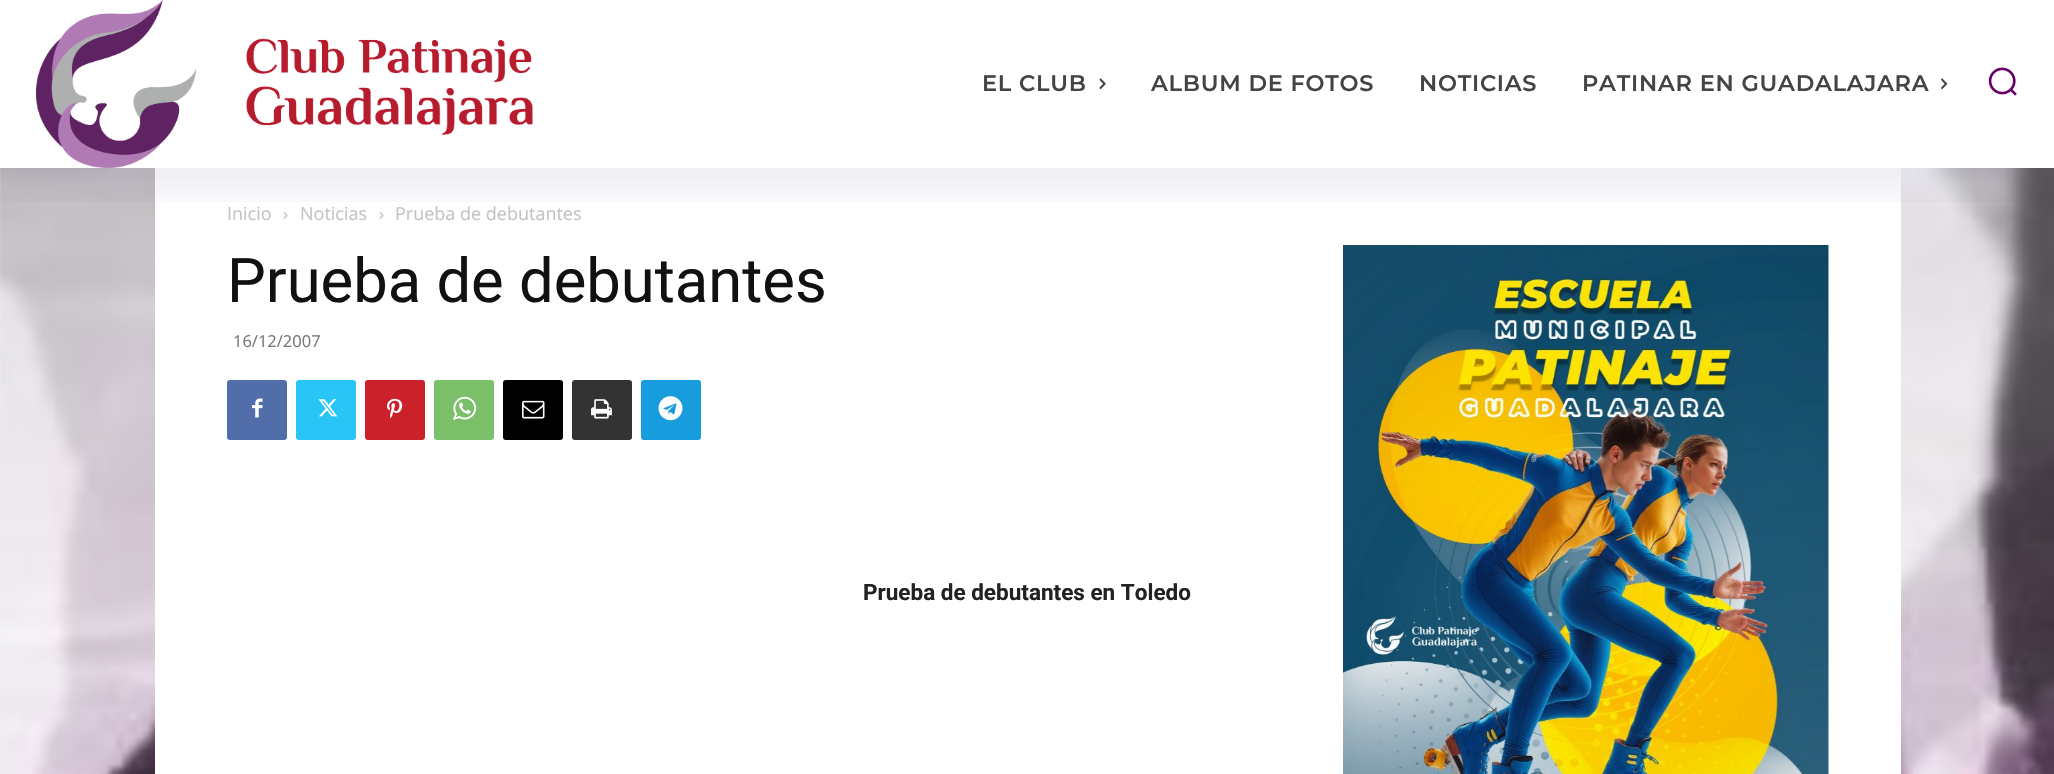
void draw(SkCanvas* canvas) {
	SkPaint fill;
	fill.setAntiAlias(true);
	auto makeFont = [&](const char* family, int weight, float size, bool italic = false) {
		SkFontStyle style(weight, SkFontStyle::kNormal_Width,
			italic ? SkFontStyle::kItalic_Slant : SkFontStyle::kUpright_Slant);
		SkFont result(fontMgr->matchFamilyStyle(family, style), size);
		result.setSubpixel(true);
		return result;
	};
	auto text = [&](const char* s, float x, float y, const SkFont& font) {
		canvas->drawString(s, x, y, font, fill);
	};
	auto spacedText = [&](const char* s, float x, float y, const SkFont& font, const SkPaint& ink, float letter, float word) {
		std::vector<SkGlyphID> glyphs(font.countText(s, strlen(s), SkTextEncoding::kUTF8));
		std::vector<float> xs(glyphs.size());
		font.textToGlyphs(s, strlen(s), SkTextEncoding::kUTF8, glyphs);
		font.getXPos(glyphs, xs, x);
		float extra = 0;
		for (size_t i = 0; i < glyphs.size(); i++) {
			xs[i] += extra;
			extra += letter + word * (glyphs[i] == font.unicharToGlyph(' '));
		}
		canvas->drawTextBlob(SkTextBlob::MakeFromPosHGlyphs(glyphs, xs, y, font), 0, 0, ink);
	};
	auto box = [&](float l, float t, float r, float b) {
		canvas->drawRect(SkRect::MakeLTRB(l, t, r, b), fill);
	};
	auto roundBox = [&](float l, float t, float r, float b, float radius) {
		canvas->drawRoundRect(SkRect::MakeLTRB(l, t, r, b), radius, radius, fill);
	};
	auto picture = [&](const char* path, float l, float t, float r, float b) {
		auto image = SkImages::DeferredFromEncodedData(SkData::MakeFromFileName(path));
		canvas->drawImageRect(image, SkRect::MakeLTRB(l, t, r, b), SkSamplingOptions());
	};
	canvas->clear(0xFFFFFFFF);
	picture("image13.png", 0, 168, 2054, 774);
	fill.setColor(0xFFFFFFFF);
	box(155, 168, 1901, 774);
	picture("image4.png", 283, 212, 288, 219);
	picture("image4.png", 379, 212, 384, 219);
	picture("image12.png", 1343, 245, 1829, 774);
	canvas->save();
	canvas->clipRect(SkRect::MakeLTRB(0, 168, 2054, 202));
	fill.setColor(0x1A020247);
	fill.setMaskFilter(SkMaskFilter::MakeBlur(kNormal_SkBlurStyle, 30));
	canvas->drawRect(SkRect::MakeLTRB(0, 9, 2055, 177), fill);
	fill.setMaskFilter(nullptr);
	canvas->restore();
	picture("image0.png", 36, 0, 533, 168);
	picture("image1.png", 1099, 78, 1106, 89);
	picture("image2.png", 1941, 78, 1948, 89);
	picture("image3.png", 1988, 67, 2017, 96);
	fill.setColor(0xFF516EAB);
	roundBox(227, 380, 287, 440, 3);
	picture("image5.png", 252, 398, 263, 418);
	fill.setColor(0xFF29C5F6);
	roundBox(296, 380, 356, 440, 3);
	picture("image6.png", 318, 399, 338, 417);
	fill.setColor(0xFFCA212A);
	roundBox(365, 380, 425, 440, 3);
	picture("image7.png", 387, 398, 403, 419);
	fill.setColor(0xFF7BBF6A);
	roundBox(434, 380, 494, 440, 3);
	picture("image8.png", 453, 396, 477, 420);
	fill.setColor(0xFF000000);
	roundBox(503, 380, 563, 440, 3);
	picture("image9.png", 522, 400, 545, 419);
	fill.setColor(0xFF333333);
	roundBox(572, 380, 632, 440, 3);
	picture("image10.png", 591, 399, 612, 419);
	fill.setColor(0xFF179CDE);
	roundBox(641, 380, 701, 440, 3);
	picture("image11.png", 658, 396, 683, 421);
	auto font1 = makeFont("Montserrat", 600, 22.5f);
	fill.setColor(0xFF444444);
	spacedText("EL CLUB", 982, 91, font1, fill, 0.75f, 0);
	spacedText("ALBUM DE FOTOS", 1151, 91, font1, fill, 0.75f, 0);
	spacedText("NOTICIAS", 1419, 91, font1, fill, 0.75f, 0);
	spacedText("PATINAR EN GUADALAJARA", 1582, 91, font1, fill, 0.75f, 0);
	auto font2 = makeFont("Open Sans", 400, 18);
	fill.setColor(0xFFC3C3C3);
	text("Inicio", 227, 220, font2);
	text("Noticias", 300, 220, font2);
	text("Prueba de debutantes", 395, 220, font2);
	auto font3 = makeFont("Roboto", 400, 61.5f);
	fill.setColor(0xFF111111);
	text("Prueba de debutantes", 227, 302, font3);
	auto font4 = makeFont("Open Sans", 400, 16.5f);
	fill.setColor(0xFF767676);
	text("16/12/2007", 233, 347, font4);
	auto font5 = makeFont("Roboto", 700, 22.5f);
	fill.setColor(0xFF222222);
	text("Prueba de debutantes en Toledo", 863, 600, font5);
}
